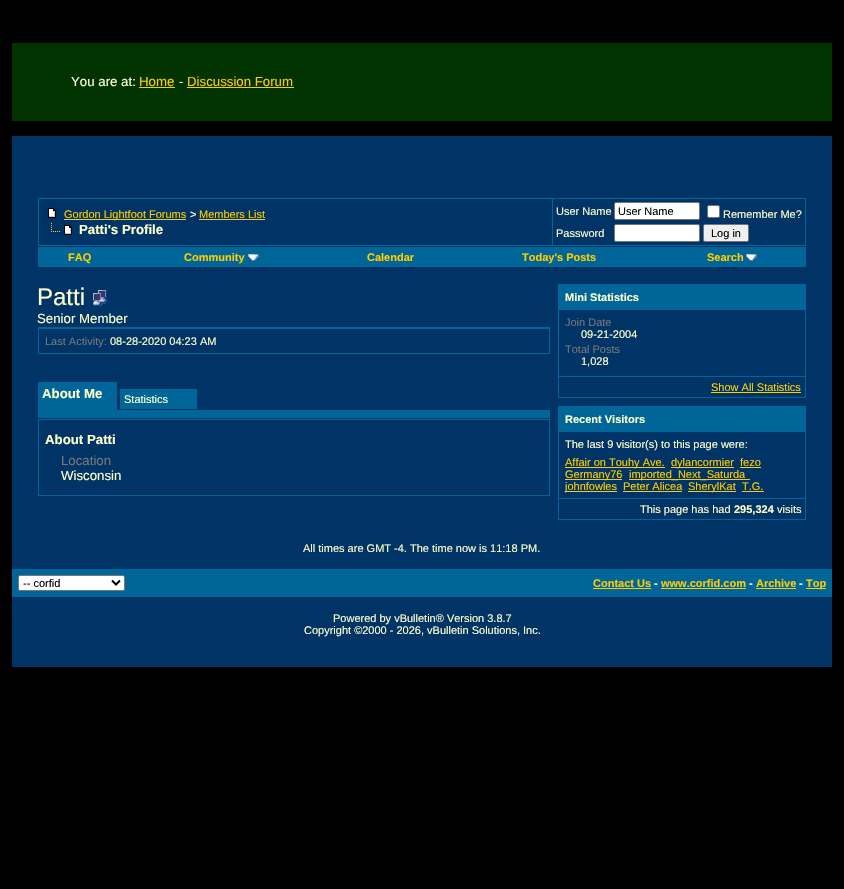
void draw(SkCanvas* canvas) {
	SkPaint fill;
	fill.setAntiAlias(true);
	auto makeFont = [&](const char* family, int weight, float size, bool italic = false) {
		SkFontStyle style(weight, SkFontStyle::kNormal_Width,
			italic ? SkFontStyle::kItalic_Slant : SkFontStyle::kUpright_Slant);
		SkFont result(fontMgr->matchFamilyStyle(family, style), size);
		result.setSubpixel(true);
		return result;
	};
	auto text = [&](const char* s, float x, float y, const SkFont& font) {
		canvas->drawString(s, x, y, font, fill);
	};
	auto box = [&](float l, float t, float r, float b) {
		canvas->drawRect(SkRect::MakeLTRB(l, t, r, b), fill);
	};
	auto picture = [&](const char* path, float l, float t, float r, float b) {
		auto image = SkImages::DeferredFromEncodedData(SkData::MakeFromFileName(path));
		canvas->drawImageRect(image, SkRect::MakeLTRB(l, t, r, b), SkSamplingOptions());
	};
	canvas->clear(0xFF000000);
	fill.setColor(0xFF003300);
	box(12, 43, 832, 121);
	fill.setColor(0xFFFFCC00);
	box(139, 87, 175, 88);
	box(187, 87, 294, 88);
	fill.setColor(0xFF003366);
	box(12, 136, 832, 636);
	fill.setColor(0xFF006699);
	box(38, 198, 806, 246);
	fill.setColor(0xFF003366);
	box(39, 199, 552, 245);
	picture("image0.png", 45, 206, 60, 221);
	fill.setColor(0xFFFFCC00);
	box(64, 219, 186, 220);
	box(199, 219, 265, 220);
	picture("image1.png", 51, 223, 72, 235);
	fill.setColor(0xFF003366);
	box(553, 199, 805, 245);
	fill.setColor(0xFFFFFFFF);
	canvas->drawRoundRect(SkRect::MakeLTRB(614.5f, 202.5f, 699.5f, 219.5f), 1.5f, 1.5f, fill);
	fill.setStyle(SkPaint::kStroke_Style);
	fill.setStrokeWidth(1);
	fill.setColor(0xFF767676);
	canvas->drawRoundRect(SkRect::MakeLTRB(614.5f, 202.5f, 699.5f, 219.5f), 1.5f, 1.5f, fill);
	fill.setStyle(SkPaint::kFill_Style);
	fill.setColor(0xFFFFFFFF);
	canvas->drawRoundRect(SkRect::MakeLTRB(707.5f, 205.5f, 719.5f, 217.5f), 1.5f, 1.5f, fill);
	fill.setStyle(SkPaint::kStroke_Style);
	fill.setColor(0xFF767676);
	canvas->drawRoundRect(SkRect::MakeLTRB(707.5f, 205.5f, 719.5f, 217.5f), 1.5f, 1.5f, fill);
	fill.setStyle(SkPaint::kFill_Style);
	fill.setColor(0xFFFFFFFF);
	canvas->drawRoundRect(SkRect::MakeLTRB(614.5f, 224.5f, 699.5f, 241.5f), 1.5f, 1.5f, fill);
	fill.setStyle(SkPaint::kStroke_Style);
	fill.setColor(0xFF767676);
	canvas->drawRoundRect(SkRect::MakeLTRB(614.5f, 224.5f, 699.5f, 241.5f), 1.5f, 1.5f, fill);
	fill.setStyle(SkPaint::kFill_Style);
	fill.setColor(0xFFEFEFEF);
	canvas->drawRoundRect(SkRect::MakeLTRB(703.5f, 224.5f, 748.5f, 241.5f), 1.5f, 1.5f, fill);
	fill.setStyle(SkPaint::kStroke_Style);
	fill.setColor(0xFF767676);
	canvas->drawRoundRect(SkRect::MakeLTRB(703.5f, 224.5f, 748.5f, 241.5f), 1.5f, 1.5f, fill);
	fill.setStyle(SkPaint::kFill_Style);
	fill.setColor(0xFF006699);
	box(38, 247, 806, 267);
	picture("image2.png", 248, 254, 259, 261);
	picture("image2.png", 746, 254, 757, 261);
	picture("image3.png", 93, 290, 107, 306);
	box(38, 327, 550, 354);
	fill.setColor(0xFF003366);
	box(39, 329, 549, 353);
	fill.setColor(0xFF006699);
	box(38, 382, 117, 410);
	box(120, 389, 197, 409);
	box(38, 410, 550, 418);
	box(38, 419, 550, 496);
	fill.setColor(0xFF003366);
	box(39, 420, 549, 495);
	fill.setColor(0xFF006699);
	box(558, 284, 806, 398);
	fill.setColor(0xFF003366);
	box(559, 310, 805, 376);
	box(559, 377, 805, 397);
	fill.setColor(0xFFFFCC00);
	box(711, 392, 801, 393);
	fill.setColor(0xFF006699);
	box(558, 406, 806, 520);
	fill.setColor(0xFF003366);
	box(559, 432, 805, 498);
	fill.setColor(0xFFFFCC00);
	box(565, 467, 665, 468);
	box(671, 467, 734, 468);
	box(740, 467, 761, 468);
	box(565, 479, 622, 480);
	box(629, 479, 750, 480);
	box(565, 491, 617, 492);
	box(623, 491, 682, 492);
	box(688, 491, 736, 492);
	box(742, 491, 764, 492);
	fill.setColor(0xFF003366);
	box(559, 499, 805, 519);
	fill.setColor(0xFF006699);
	box(12, 569, 832, 597);
	fill.setColor(0xFFFFFFFF);
	canvas->drawRoundRect(SkRect::MakeLTRB(18.5f, 575.5f, 124.5f, 590.5f), 1.5f, 1.5f, fill);
	fill.setStyle(SkPaint::kStroke_Style);
	fill.setColor(0xFF767676);
	canvas->drawRoundRect(SkRect::MakeLTRB(18.5f, 575.5f, 124.5f, 590.5f), 1.5f, 1.5f, fill);
	fill.setStrokeWidth(2);
	fill.setColor(0xFF000000);
	canvas->drawPath(SkPathBuilder().moveTo(112, 580.5f).lineTo(116, 584.5f).lineTo(120, 580.5f).detach(), fill);
	fill.setStyle(SkPaint::kFill_Style);
	fill.setColor(0xFFFFCC00);
	box(593, 588, 651, 589);
	box(661, 588, 746, 589);
	box(756, 588, 796, 589);
	box(806, 588, 826, 589);
	fill.setColor(0xFF003366);
	box(12, 636, 832, 667);
	auto font1 = makeFont("Liberation Sans", 400, 13.25f);
	fill.setColor(0xFFFFFFCC);
	text("You are at:", 71, 86, font1);
	fill.setColor(0xFFFFCC00);
	text("Home", 139, 86, font1);
	fill.setColor(0xFFFFFFCC);
	text("-", 179, 86, font1);
	fill.setColor(0xFFFFCC00);
	text("Discussion Forum", 187, 86, font1);
	auto font2 = makeFont("Liberation Sans", 400, 11);
	text("Gordon Lightfoot Forums", 64, 218, font2);
	fill.setColor(0xFFFFFFCC);
	text(">", 190, 218, font2);
	fill.setColor(0xFFFFCC00);
	text("Members List", 199, 218, font2);
	auto font3 = makeFont("Liberation Sans", 700, 13.25f);
	fill.setColor(0xFFFFFFCC);
	text("Patti's Profile", 79, 234, font3);
	text("User Name", 556, 215, font2);
	fill.setColor(0xFF000000);
	text("User Name", 618, 215, font2);
	fill.setColor(0xFFFFFFCC);
	text("Remember Me?", 723, 218, font2);
	text("Password", 556, 237, font2);
	fill.setColor(0xFF000000);
	text("Log in", 711, 237, font2);
	auto font4 = makeFont("Liberation Sans", 700, 11);
	fill.setColor(0xFFFFCC00);
	text("FAQ", 68, 261, font4);
	text("Community", 184, 261, font4);
	text("Calendar", 367, 261, font4);
	text("Today's Posts", 522, 261, font4);
	text("Search", 707, 261, font4);
	auto font5 = makeFont("Liberation Sans", 400, 24);
	fill.setColor(0xFFFFFFCC);
	text("Patti", 37, 305, font5);
	text("Senior Member", 37, 323, font1);
	fill.setColor(0xFF777777);
	text("Last Activity:", 45, 345, font2);
	fill.setColor(0xFFFFFFCC);
	text("08-28-2020 04:23 AM", 110, 345, font2);
	text("About Me", 42, 398, font3);
	text("Statistics", 124, 403, font2);
	text("About Patti", 45, 444, font3);
	fill.setColor(0xFF777777);
	text("Location", 61, 465, font1);
	fill.setColor(0xFFFFFFCC);
	text("Wisconsin", 61, 480, font1);
	text("Mini Statistics", 565, 301, font4);
	fill.setColor(0xFF777777);
	text("Join Date", 565, 326, font2);
	fill.setColor(0xFFFFFFCC);
	text("09-21-2004", 581, 338, font2);
	fill.setColor(0xFF777777);
	text("Total Posts", 565, 353, font2);
	fill.setColor(0xFFFFFFCC);
	text("1,028", 581, 365, font2);
	fill.setColor(0xFFFFCC00);
	text("Show All Statistics", 711, 391, font2);
	fill.setColor(0xFFFFFFCC);
	text("Recent Visitors", 565, 423, font4);
	text("The last 9 visitor(s) to this page were:", 565, 448, font2);
	fill.setColor(0xFFFFCC00);
	text("Affair on Touhy Ave.", 565, 466, font2);
	text("dylancormier", 671, 466, font2);
	text("fezo", 740, 466, font2);
	text("Germany76", 565, 478, font2);
	text("imported_Next_Saturda", 629, 478, font2);
	text("johnfowles", 565, 490, font2);
	text("Peter Alicea", 623, 490, font2);
	text("SherylKat", 688, 490, font2);
	text("T.G.", 742, 490, font2);
	fill.setColor(0xFFFFFFCC);
	text("This page has had", 640, 513, font2);
	text("295,324", 734, 513, font4);
	text("visits", 777, 513, font2);
	text("All times are GMT -4. The time now is 11:18 PM.", 303, 552, font2);
	fill.setColor(0xFF000000);
	text("-- corfid", 23, 587, font2);
	fill.setColor(0xFFFFCC00);
	text("Contact Us", 593, 587, font4);
	fill.setColor(0xFFFFFFCC);
	text("-", 654, 587, font4);
	fill.setColor(0xFFFFCC00);
	text("www.corfid.com", 661, 587, font4);
	fill.setColor(0xFFFFFFCC);
	text("-", 749, 587, font4);
	fill.setColor(0xFFFFCC00);
	text("Archive", 756, 587, font4);
	fill.setColor(0xFFFFFFCC);
	text("-", 799, 587, font4);
	fill.setColor(0xFFFFCC00);
	text("Top", 806, 587, font4);
	fill.setColor(0xFFFFFFCC);
	text("Powered by vBulletin® Version 3.8.7", 333, 622, font2);
	text("Copyright ©2000 - 2026, vBulletin Solutions, Inc.", 304, 634, font2);
}
